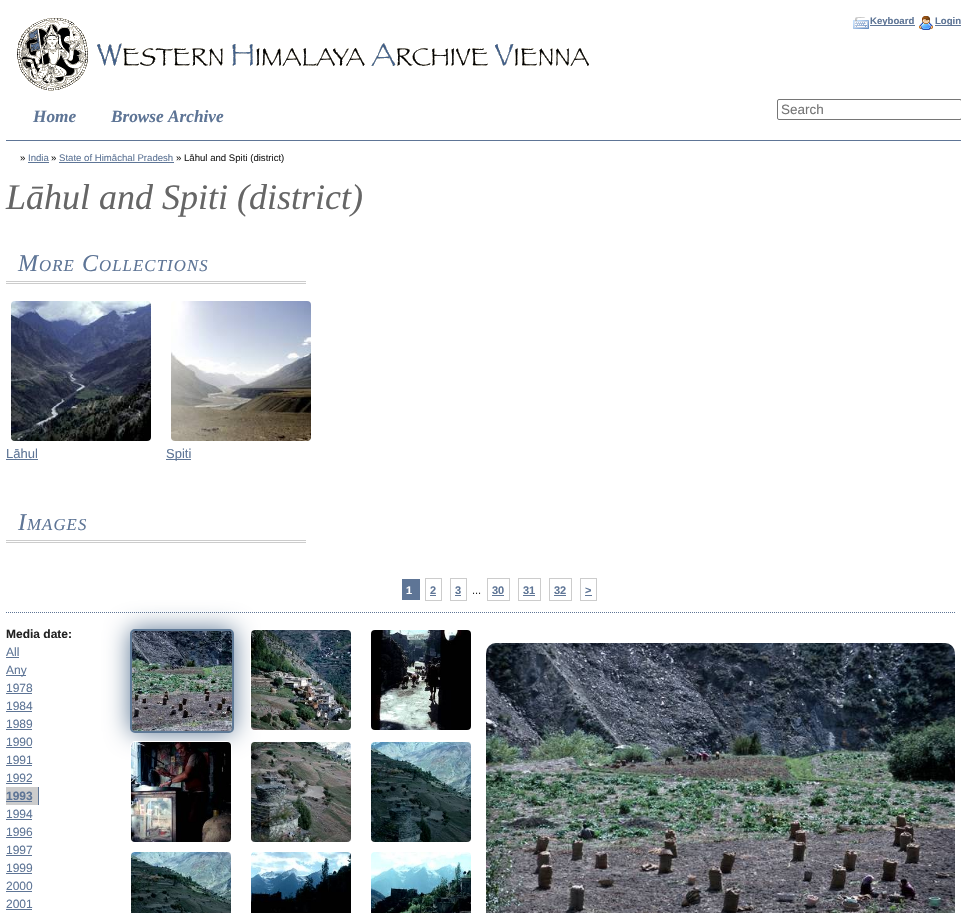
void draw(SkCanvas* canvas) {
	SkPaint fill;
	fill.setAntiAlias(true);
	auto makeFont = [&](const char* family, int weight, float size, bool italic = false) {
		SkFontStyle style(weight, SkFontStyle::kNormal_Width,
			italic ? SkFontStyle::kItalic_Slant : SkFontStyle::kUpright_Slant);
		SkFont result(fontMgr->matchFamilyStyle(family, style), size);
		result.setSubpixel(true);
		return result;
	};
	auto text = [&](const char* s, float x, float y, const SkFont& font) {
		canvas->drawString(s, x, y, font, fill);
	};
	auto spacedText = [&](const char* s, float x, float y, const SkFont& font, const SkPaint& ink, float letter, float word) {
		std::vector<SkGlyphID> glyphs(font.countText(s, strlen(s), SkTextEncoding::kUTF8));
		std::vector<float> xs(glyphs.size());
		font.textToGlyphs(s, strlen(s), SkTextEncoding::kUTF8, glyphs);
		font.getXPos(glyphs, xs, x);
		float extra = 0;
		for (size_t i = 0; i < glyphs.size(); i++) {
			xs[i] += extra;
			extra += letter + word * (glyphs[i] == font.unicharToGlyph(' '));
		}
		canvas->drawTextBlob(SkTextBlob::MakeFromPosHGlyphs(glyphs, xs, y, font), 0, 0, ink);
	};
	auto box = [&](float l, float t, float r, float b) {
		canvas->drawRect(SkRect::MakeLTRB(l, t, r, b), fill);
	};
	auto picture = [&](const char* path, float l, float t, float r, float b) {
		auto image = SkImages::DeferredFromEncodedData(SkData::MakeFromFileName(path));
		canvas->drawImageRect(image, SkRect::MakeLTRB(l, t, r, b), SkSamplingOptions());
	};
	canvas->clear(0xFFFFFFFF);
	fill.setColor(0xFF5E7596);
	box(6, 140, 961, 141);
	picture("image0.png", 17, 18, 589, 91);
	picture("image1.png", 853, 17, 869, 29);
	box(870, 25, 915, 26);
	picture("image2.png", 919, 16, 933, 30);
	box(935, 25, 961, 26);
	fill.setStyle(SkPaint::kStroke_Style);
	fill.setStrokeWidth(1);
	fill.setColor(0xFF767676);
	canvas->drawRoundRect(SkRect::MakeLTRB(777.5f, 99.5f, 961.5f, 119.5f), 1.5f, 1.5f, fill);
	fill.setStyle(SkPaint::kFill_Style);
	fill.setColor(0xFF5E7596);
	box(28, 162, 49, 163);
	box(59, 162, 174, 163);
	fill.setColor(0xFFCCCCCC);
	box(6, 281, 306, 282);
	box(6, 283, 306, 284);
	picture("image3.png", 11, 301, 151, 441);
	fill.setColor(0xFF5E7596);
	box(6, 459, 38, 460);
	picture("image4.png", 171, 301, 311, 441);
	box(166, 459, 191, 460);
	fill.setColor(0xFFCCCCCC);
	box(6, 540, 306, 541);
	box(6, 542, 306, 543);
	fill.setColor(0xFF5E7596);
	box(402, 579, 420, 600);
	fill.setStyle(SkPaint::kStroke_Style);
	fill.setColor(0xFFCCCCCC);
	canvas->drawRect(SkRect::MakeLTRB(425.5f, 578.5f, 441.5f, 600.5f), fill);
	fill.setStyle(SkPaint::kFill_Style);
	fill.setColor(0xFF5E7596);
	box(430, 595, 436, 596);
	fill.setStyle(SkPaint::kStroke_Style);
	fill.setColor(0xFFCCCCCC);
	canvas->drawRect(SkRect::MakeLTRB(450.5f, 578.5f, 466.5f, 600.5f), fill);
	fill.setStyle(SkPaint::kFill_Style);
	fill.setColor(0xFF5E7596);
	box(455, 595, 461, 596);
	fill.setStyle(SkPaint::kStroke_Style);
	fill.setColor(0xFFCCCCCC);
	canvas->drawRect(SkRect::MakeLTRB(487.5f, 578.5f, 509.5f, 600.5f), fill);
	fill.setStyle(SkPaint::kFill_Style);
	fill.setColor(0xFF5E7596);
	box(492, 595, 504, 596);
	fill.setStyle(SkPaint::kStroke_Style);
	fill.setColor(0xFFCCCCCC);
	canvas->drawRect(SkRect::MakeLTRB(518.5f, 578.5f, 540.5f, 600.5f), fill);
	fill.setStyle(SkPaint::kFill_Style);
	fill.setColor(0xFF5E7596);
	box(523, 595, 535, 596);
	fill.setStyle(SkPaint::kStroke_Style);
	fill.setColor(0xFFCCCCCC);
	canvas->drawRect(SkRect::MakeLTRB(549.5f, 578.5f, 571.5f, 600.5f), fill);
	fill.setStyle(SkPaint::kFill_Style);
	fill.setColor(0xFF5E7596);
	box(554, 595, 566, 596);
	fill.setStyle(SkPaint::kStroke_Style);
	fill.setColor(0xFFCCCCCC);
	canvas->drawRect(SkRect::MakeLTRB(580.5f, 578.5f, 596.5f, 600.5f), fill);
	fill.setStyle(SkPaint::kFill_Style);
	fill.setColor(0xFF5E7596);
	box(585, 595, 592, 596);
	fill.setStyle(SkPaint::kStroke_Style);
	fill.setPathEffect(SkDashPathEffect::Make({{1, 1}}, 0));
	canvas->drawPath(SkPathBuilder().moveTo(6, 612.5f).lineTo(956, 612.5f).detach(), fill);
	fill.setPathEffect(nullptr);
	fill.setStyle(SkPaint::kFill_Style);
	box(6, 657, 19, 658);
	box(6, 675, 26, 676);
	box(6, 693, 32, 694);
	box(6, 711, 32, 712);
	box(6, 729, 32, 730);
	box(6, 747, 32, 748);
	box(6, 765, 32, 766);
	box(6, 783, 32, 784);
	fill.setColor(0xFFCCCCCC);
	box(6, 787, 38, 805);
	fill.setColor(0xFF5E7596);
	box(38, 787, 39, 805);
	box(6, 801, 32, 802);
	box(6, 819, 32, 820);
	box(6, 837, 32, 838);
	box(6, 855, 32, 856);
	box(6, 873, 32, 874);
	box(6, 891, 32, 892);
	box(6, 909, 32, 910);
	fill.setColor(0xFF5E7996);
	fill.setMaskFilter(SkMaskFilter::MakeBlur(kNormal_SkBlurStyle, 12.5f));
	canvas->drawRoundRect(SkRect::MakeLTRB(130, 629, 234, 733), 5, 5, fill);
	fill.setMaskFilter(nullptr);
	fill.setStyle(SkPaint::kStroke_Style);
	fill.setStrokeWidth(2);
	canvas->drawRoundRect(SkRect::MakeLTRB(131, 630, 233, 732), 4, 4, fill);
	picture("image5.png", 132, 631, 232, 731);
	fill.setStrokeWidth(1);
	fill.setColor(0xFFFFFFFF);
	canvas->drawRoundRect(SkRect::MakeLTRB(250.5f, 629.5f, 351.5f, 730.5f), 4.5f, 4.5f, fill);
	picture("image6.png", 251, 630, 351, 730);
	picture("image7.png", 371, 630, 471, 730);
	canvas->drawRoundRect(SkRect::MakeLTRB(130.5f, 741.5f, 231.5f, 842.5f), 4.5f, 4.5f, fill);
	picture("image8.png", 131, 742, 231, 842);
	picture("image9.png", 251, 742, 351, 842);
	picture("image10.png", 371, 742, 471, 842);
	picture("image11.png", 131, 852, 231, 913);
	picture("image12.png", 251, 852, 351, 913);
	picture("image13.png", 371, 852, 471, 913);
	picture("image14.png", 486, 643, 955, 913);
	auto font1 = makeFont("Liberation Sans", 700, 9.6f);
	fill.setStyle(SkPaint::kFill_Style);
	fill.setColor(0xFF5E7596);
	text("Keyboard", 870, 24, font1);
	text("Login", 935, 24, font1);
	auto font2 = makeFont("Liberation Serif", 700, 17.25f, true);
	text("Home", 33, 122, font2);
	text("Browse Archive", 111, 122, font2);
	auto font3 = makeFont("Liberation Sans", 400, 13.5f);
	fill.setColor(0xFF757575);
	text("Search", 781, 114, font3);
	auto font4 = makeFont("Liberation Sans", 400, 9.6f);
	fill.setColor(0xFF222222);
	text("»", 20, 161, font4);
	fill.setColor(0xFF5E7596);
	text("India", 28, 161, font4);
	fill.setColor(0xFF222222);
	text("»", 51, 161, font4);
	fill.setColor(0xFF5E7596);
	text("State of Himāchal Pradesh", 59, 161, font4);
	fill.setColor(0xFF222222);
	text("» Lāhul and Spiti (district)", 176, 161, font4);
	auto font5 = makeFont("Liberation Serif", 400, 36, true);
	fill.setColor(0xFF666666);
	text("Lāhul and Spiti (district)", 6, 209, font5);
	auto font6 = makeFont("Liberation Serif", 400, 24, true);
	fill.setColor(0xFF5E7596);
	spacedText("M", 18, 271, font6, fill, 1.1f, 0);
	auto font7 = makeFont("Liberation Serif", 400, 16.75f, true);
	spacedText("ORE", 39, 271, font7, fill, 1.1f, 0);
	spacedText("C", 82, 271, font6, fill, 1.1f, 0);
	spacedText("OLLECTIONS", 99, 271, font7, fill, 1.1f, 0);
	auto font8 = makeFont("Liberation Sans", 400, 13);
	text("Lāhul", 6, 458, font8);
	text("Spiti", 166, 458, font8);
	spacedText("I", 18, 530, font6, fill, 1.1f, 0);
	spacedText("MAGES", 27, 530, font7, fill, 1.1f, 0);
	auto font9 = makeFont("Liberation Sans", 700, 11);
	fill.setColor(0xFFFFFFFF);
	text("1", 406, 594, font9);
	fill.setColor(0xFF5E7596);
	text("2", 430, 594, font9);
	text("3", 455, 594, font9);
	auto font10 = makeFont("Liberation Sans", 400, 11);
	fill.setColor(0xFF222222);
	text("...", 472, 594, font10);
	fill.setColor(0xFF5E7596);
	text("30", 492, 594, font9);
	text("31", 523, 594, font9);
	text("32", 554, 594, font9);
	text(">", 585, 594, font9);
	auto font11 = makeFont("Liberation Sans", 700, 12);
	fill.setColor(0xFF222222);
	text("Media date:", 6, 638, font11);
	auto font12 = makeFont("Liberation Sans", 400, 12);
	fill.setColor(0xFF5E7596);
	text("All", 6, 656, font12);
	text("Any", 6, 674, font12);
	text("1978", 6, 692, font12);
	text("1984", 6, 710, font12);
	text("1989", 6, 728, font12);
	text("1990", 6, 746, font12);
	text("1991", 6, 764, font12);
	text("1992", 6, 782, font12);
	text("1993", 6, 800, font11);
	text("1994", 6, 818, font12);
	text("1996", 6, 836, font12);
	text("1997", 6, 854, font12);
	text("1999", 6, 872, font12);
	text("2000", 6, 890, font12);
	text("2001", 6, 908, font12);
}
